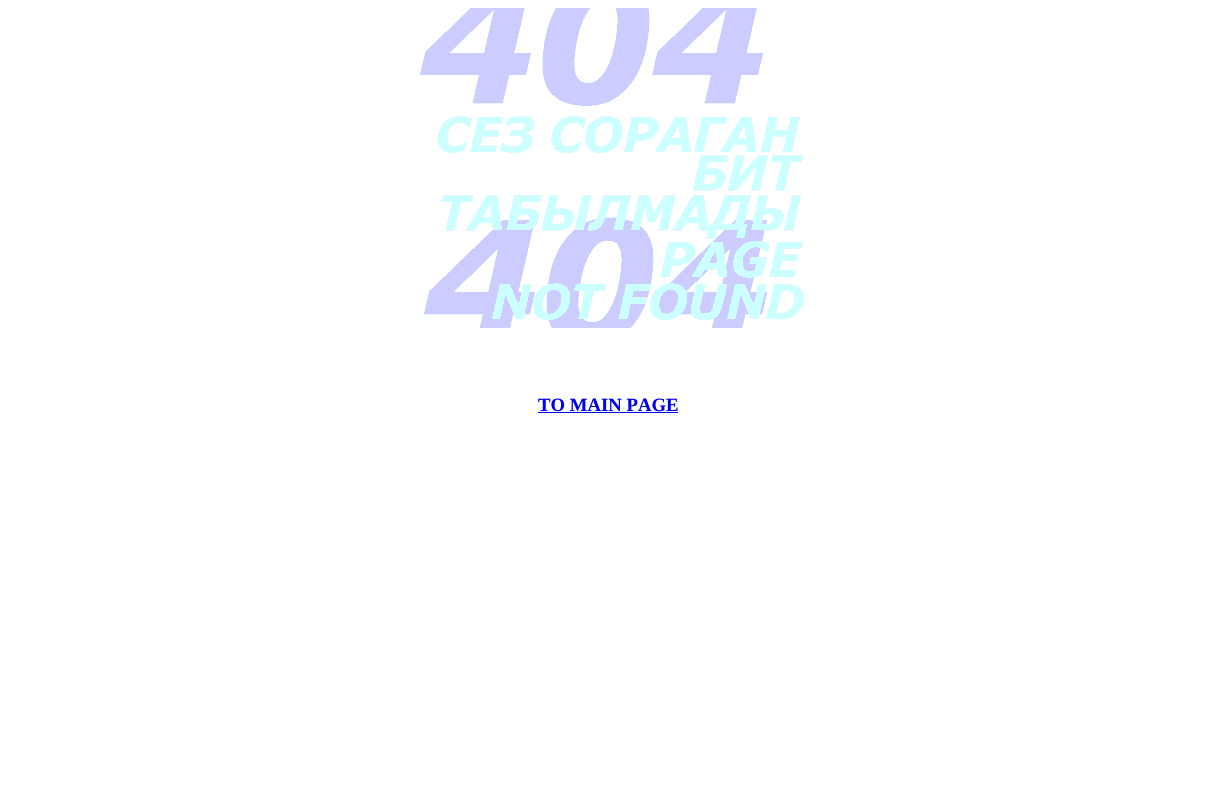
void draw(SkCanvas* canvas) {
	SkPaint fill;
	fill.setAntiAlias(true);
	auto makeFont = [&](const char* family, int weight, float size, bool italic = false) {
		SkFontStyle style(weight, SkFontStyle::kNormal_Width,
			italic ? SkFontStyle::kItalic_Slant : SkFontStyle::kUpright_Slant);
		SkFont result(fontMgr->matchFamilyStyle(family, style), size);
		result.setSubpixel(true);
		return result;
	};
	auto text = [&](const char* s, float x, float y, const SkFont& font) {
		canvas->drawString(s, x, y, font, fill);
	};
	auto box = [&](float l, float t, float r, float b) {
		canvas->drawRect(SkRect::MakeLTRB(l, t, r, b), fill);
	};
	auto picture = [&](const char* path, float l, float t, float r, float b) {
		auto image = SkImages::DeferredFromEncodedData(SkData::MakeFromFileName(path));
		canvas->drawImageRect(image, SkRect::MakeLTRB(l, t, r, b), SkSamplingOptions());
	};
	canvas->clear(0xFFFFFFFF);
	picture("image0.png", 420, 8, 804, 328);
	fill.setColor(0xFF0000EE);
	box(538, 412, 678, 413);
	auto font1 = makeFont("Liberation Serif", 700, 18.75f);
	text("TO MAIN PAGE", 538, 411, font1);
}
